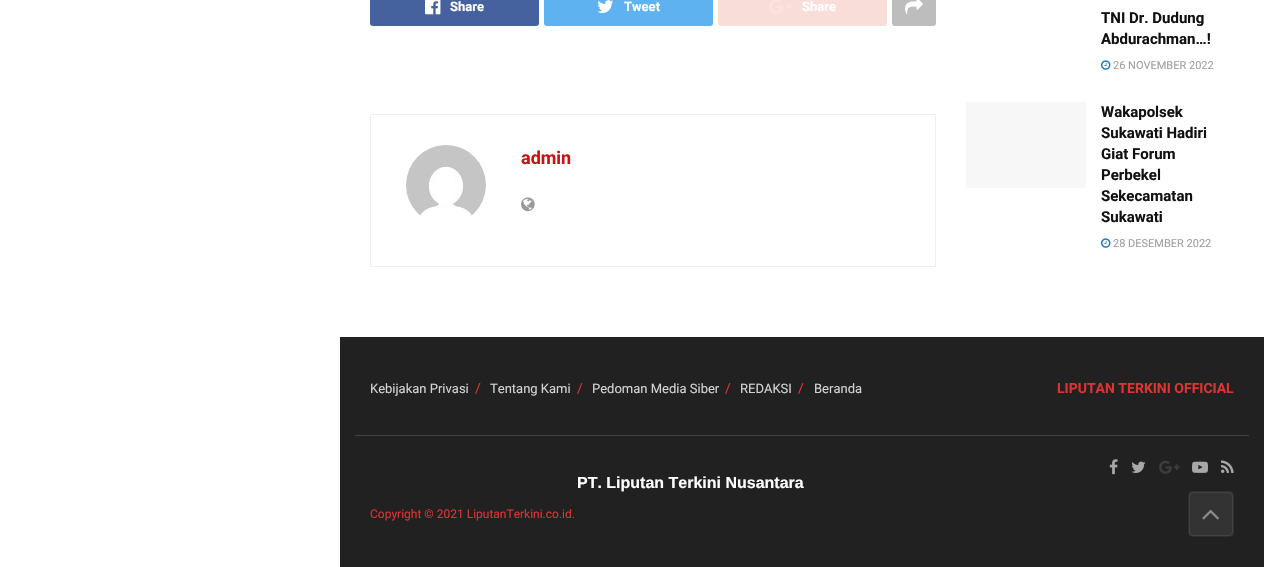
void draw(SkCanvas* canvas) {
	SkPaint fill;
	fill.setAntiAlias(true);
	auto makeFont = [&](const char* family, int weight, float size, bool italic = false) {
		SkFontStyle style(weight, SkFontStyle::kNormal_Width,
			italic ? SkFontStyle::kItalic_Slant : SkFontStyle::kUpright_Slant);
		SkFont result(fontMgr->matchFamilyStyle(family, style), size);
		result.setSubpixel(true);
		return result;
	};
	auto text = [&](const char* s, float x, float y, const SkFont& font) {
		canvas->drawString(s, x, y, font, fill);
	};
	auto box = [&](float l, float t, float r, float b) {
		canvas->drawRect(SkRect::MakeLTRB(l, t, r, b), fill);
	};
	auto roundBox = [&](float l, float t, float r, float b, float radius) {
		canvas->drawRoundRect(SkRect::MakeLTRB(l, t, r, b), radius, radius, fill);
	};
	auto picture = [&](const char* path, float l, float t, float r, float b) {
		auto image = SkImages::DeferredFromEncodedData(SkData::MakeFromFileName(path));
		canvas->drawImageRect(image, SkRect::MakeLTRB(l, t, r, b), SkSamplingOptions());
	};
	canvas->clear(0xFFFFFFFF);
	fill.setColor(0xFF45629F);
	roundBox(370, -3, 539, 26, 3);
	picture("image0.png", 425, 0, 441, 15);
	fill.setColor(0xFF5EB2EF);
	roundBox(544, -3, 713, 26, 3);
	picture("image1.png", 597, 0, 614, 13);
	fill.setColor(0xFFF9DDD9);
	roundBox(718, -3, 887, 26, 3);
	picture("image2.png", 769, 0, 792, 14);
	fill.setColor(0xFFBDBDBD);
	roundBox(892, -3, 936, 26, 3);
	picture("image3.png", 905, 0, 923, 15);
	fill.setStyle(SkPaint::kStroke_Style);
	fill.setStrokeWidth(1);
	fill.setColor(0xFFEEEEEE);
	canvas->drawRect(SkRect::MakeLTRB(370.5f, 114.5f, 935.5f, 266.5f), fill);
	picture("image4.png", 406, 145, 486, 216);
	picture("image5.png", 521, 197, 535, 212);
	picture("image6.png", 1101, 60, 1111, 70);
	fill.setStyle(SkPaint::kFill_Style);
	fill.setColor(0xFFF7F7F7);
	box(966, 102, 1086, 188);
	picture("image6.png", 1101, 238, 1111, 248);
	fill.setColor(0xFF212121);
	box(340, 337, 1264, 567);
	fill.setColor(0xFF424242);
	box(355, 435, 1249, 436);
	picture("image7.png", 1109, 459, 1118, 475);
	picture("image8.png", 1131, 461, 1146, 473);
	picture("image9.png", 1159, 460, 1180, 474);
	picture("image10.png", 1192, 461, 1208, 473);
	picture("image11.png", 1221, 460, 1234, 473);
	fill.setColor(0xFF333333);
	roundBox(1188, 491, 1234, 537, 5);
	fill.setStyle(SkPaint::kStroke_Style);
	fill.setColor(0xFF434343);
	canvas->drawRoundRect(SkRect::MakeLTRB(1189.5f, 492.5f, 1232.5f, 535.5f), 3.5f, 3.5f, fill);
	fill.setColor(0x1C070707);
	canvas->drawRoundRect(SkRect::MakeLTRB(1188.5f, 491.5f, 1233.5f, 536.5f), 4.5f, 4.5f, fill);
	picture("image12.png", 1202, 509, 1219, 520);
	auto font1 = makeFont("Roboto", 700, 13);
	fill.setStyle(SkPaint::kFill_Style);
	fill.setColor(0xFFFFFFFF);
	text("Share", 450, 11, font1);
	text("Tweet", 624, 11, font1);
	text("Share", 802, 11, font1);
	auto font2 = makeFont("Roboto", 700, 18);
	fill.setColor(0xFFC91212);
	text("admin", 521, 164, font2);
	auto font3 = makeFont("Roboto", 700, 15);
	fill.setColor(0xFF111111);
	text("TNI Dr. Dudung", 1101, 23, font3);
	text("Abdurachman…!", 1101, 44, font3);
	auto font4 = makeFont("Roboto", 400, 11);
	fill.setColor(0xFFA0A0A0);
	text("26 NOVEMBER 2022", 1113, 69, font4);
	fill.setColor(0xFF111111);
	text("Wakapolsek", 1101, 117, font3);
	text("Sukawati Hadiri", 1101, 138, font3);
	text("Giat Forum", 1101, 159, font3);
	text("Perbekel", 1101, 180, font3);
	text("Sekecamatan", 1101, 201, font3);
	text("Sukawati", 1101, 222, font3);
	fill.setColor(0xFFA0A0A0);
	text("28 DESEMBER 2022", 1113, 247, font4);
	auto font5 = makeFont("Roboto", 400, 13);
	fill.setColor(0xFFD3D3D3);
	text("Kebijakan Privasi", 370, 393, font5);
	auto font6 = makeFont("Roboto", 400, 14);
	fill.setColor(0xFFDD3333);
	text("/", 475, 393, font6);
	fill.setColor(0xFFD3D3D3);
	text("Tentang Kami", 490, 393, font5);
	fill.setColor(0xFFDD3333);
	text("/", 577, 393, font6);
	fill.setColor(0xFFD3D3D3);
	text("Pedoman Media Siber", 592, 393, font5);
	fill.setColor(0xFFDD3333);
	text("/", 725, 393, font6);
	fill.setColor(0xFFD3D3D3);
	text("REDAKSI", 740, 393, font5);
	fill.setColor(0xFFDD3333);
	text("/", 798, 393, font6);
	fill.setColor(0xFFD3D3D3);
	text("Beranda", 814, 393, font5);
	auto font7 = makeFont("Roboto", 700, 14);
	fill.setColor(0xFFDD3333);
	text("LIPUTAN TERKINI OFFICIAL", 1057, 393, font7);
	auto font8 = makeFont("Liberation Sans", 700, 16);
	fill.setColor(0xFFFFFFFF);
	text("PT. Liputan Terkini Nusantara", 577, 488, font8);
	auto font9 = makeFont("Roboto", 400, 12);
	fill.setColor(0xFFDD3333);
	text("Copyright © 2021 LiputanTerkini.co.id.", 370, 518, font9);
}
